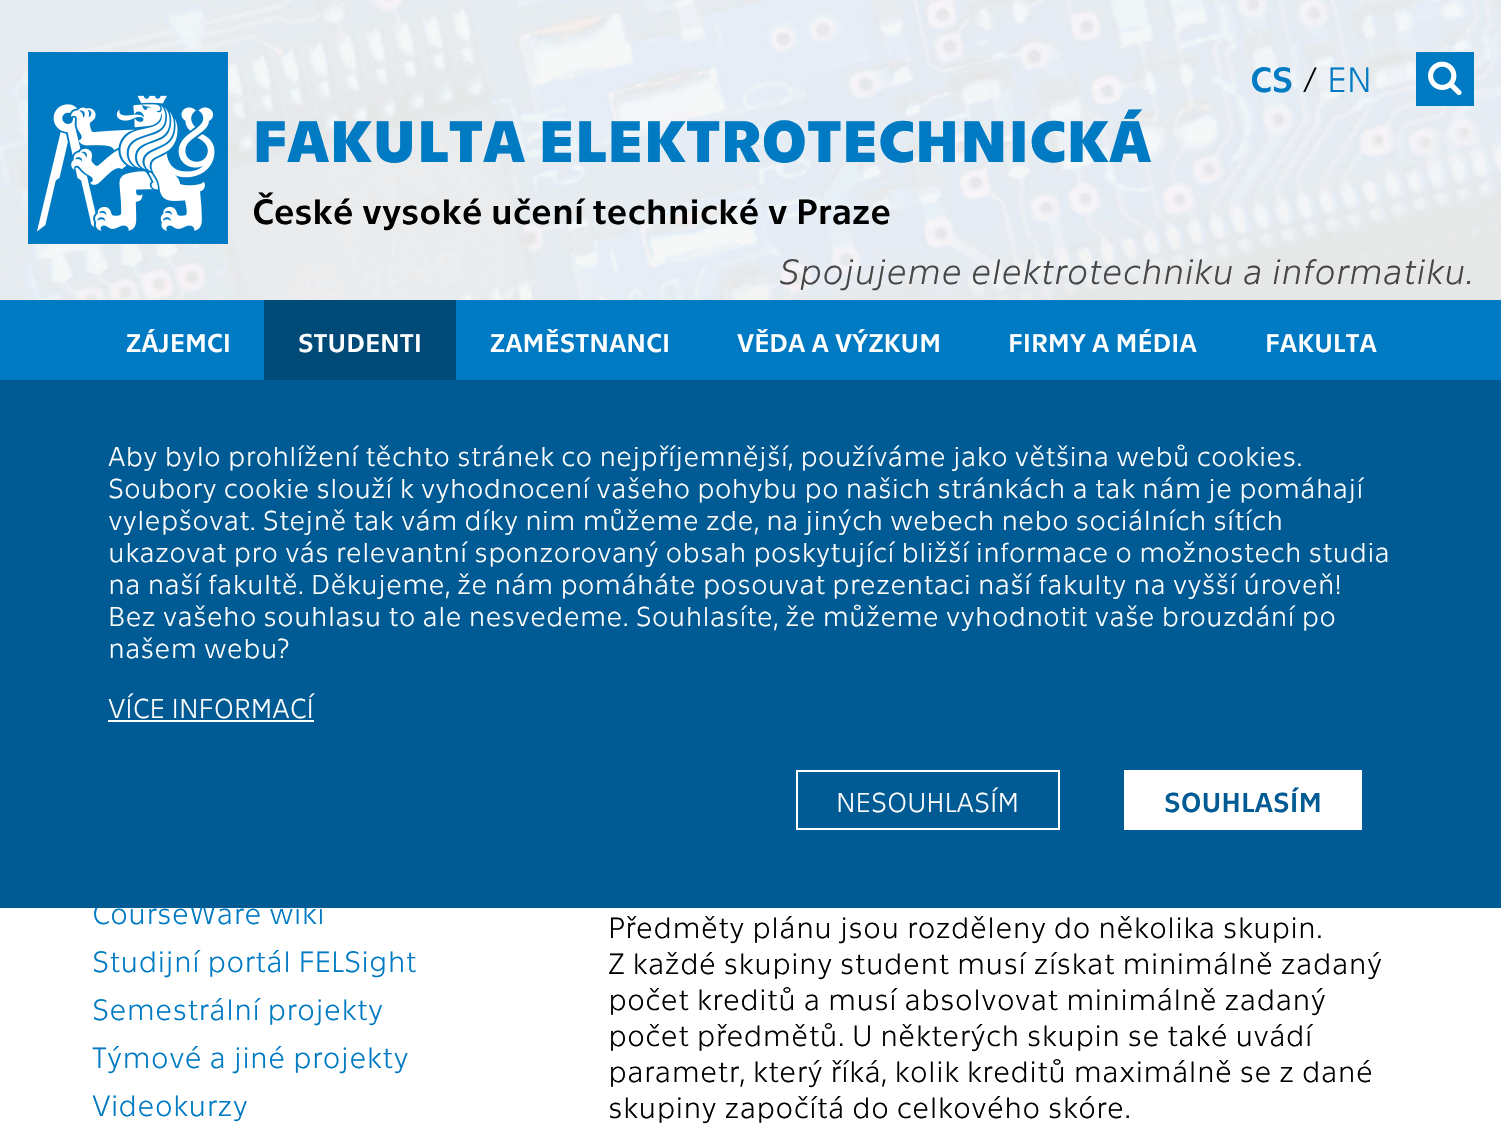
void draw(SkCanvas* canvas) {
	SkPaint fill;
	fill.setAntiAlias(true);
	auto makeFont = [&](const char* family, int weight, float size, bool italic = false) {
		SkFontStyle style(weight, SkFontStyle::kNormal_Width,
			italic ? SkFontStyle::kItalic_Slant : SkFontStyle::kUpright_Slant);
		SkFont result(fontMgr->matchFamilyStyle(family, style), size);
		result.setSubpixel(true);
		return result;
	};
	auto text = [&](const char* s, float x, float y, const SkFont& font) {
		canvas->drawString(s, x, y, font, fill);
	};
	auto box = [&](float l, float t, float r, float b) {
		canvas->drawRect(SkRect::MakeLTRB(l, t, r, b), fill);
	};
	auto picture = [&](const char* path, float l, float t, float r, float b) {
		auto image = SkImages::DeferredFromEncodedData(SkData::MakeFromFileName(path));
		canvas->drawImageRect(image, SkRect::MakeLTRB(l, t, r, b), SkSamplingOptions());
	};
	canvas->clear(0xFFFFFFFF);
	picture("image0.png", 0, 0, 1501, 300);
	fill.setColor(0xFF007AC3);
	box(28, 52, 228, 244);
	picture("image1.png", 37, 95, 215, 232);
	box(1416, 52, 1474, 106);
	picture("image2.png", 1428, 61, 1462, 96);
	box(0, 300, 1501, 380);
	fill.setColor(0xFF004A77);
	box(264, 300, 456, 380);
	auto font1 = makeFont("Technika", 400, 36);
	fill.setColor(0xFF007AC3);
	text("CS", 1250, 92, font1);
	auto font2 = makeFont("Technika", 300, 36);
	fill.setColor(0xFF000000);
	text("/", 1302, 92, font2);
	fill.setColor(0xFF007AC3);
	text("EN", 1327, 92, font2);
	auto font3 = makeFont("Technika", 300, 36, true);
	fill.setColor(0xFF464647);
	text("Spojujeme elektrotechniku a informatiku.", 779, 284, font3);
	auto font4 = makeFont("Technika", 700, 60);
	fill.setColor(0xFF007AC3);
	text("FAKULTA ELEKTROTECHNICKÁ", 252, 162, font4);
	fill.setColor(0xFF000000);
	text("České vysoké učení technické v Praze", 252, 224, font1);
	auto font5 = makeFont("Technika", 400, 26.25f);
	fill.setColor(0xFFFFFFFF);
	text("ZÁJEMCI", 126, 352, font5);
	text("STUDENTI", 298, 352, font5);
	text("ZAMĚSTNANCI", 490, 352, font5);
	text("VĚDA A VÝZKUM", 737, 352, font5);
	text("FIRMY A MÉDIA", 1008, 352, font5);
	text("FAKULTA", 1265, 352, font5);
	auto font6 = makeFont("Technika", 300, 30.1f);
	fill.setColor(0xFF007AC3);
	text("CourseWare wiki", 92, 924, font6);
	fill.setColor(0xFF005A93);
	box(0, 380, 1501, 908);
	auto font7 = makeFont("Technika", 300, 28);
	fill.setColor(0xFFFFFFFF);
	text("VÍCE INFORMACÍ", 108, 718, font7);
	box(108, 720, 314, 722);
	text("našem webu?", 108, 658, font7);
	text("Bez vašeho souhlasu to ale nesvedeme. Souhlasíte, že můžeme vyhodnotit vaše brouzdání po", 108, 626, font7);
	text("na naší fakultě. Děkujeme, že nám pomáháte posouvat prezentaci naší fakulty na vyšší úroveň!", 108, 594, font7);
	text("ukazovat pro vás relevantní sponzorovaný obsah poskytující bližší informace o možnostech studia", 108, 562, font7);
	text("vylepšovat. Stejně tak vám díky nim můžeme zde, na jiných webech nebo sociálních sítích", 108, 530, font7);
	text("Soubory cookie slouží k vyhodnocení vašeho pohybu po našich stránkách a tak nám je pomáhají", 108, 498, font7);
	text("Aby bylo prohlížení těchto stránek co nejpříjemnější, používáme jako většina webů cookies.", 108, 466, font7);
	fill.setStyle(SkPaint::kStroke_Style);
	fill.setStrokeWidth(2);
	canvas->drawRect(SkRect::MakeLTRB(797, 771, 1059, 829), fill);
	fill.setStyle(SkPaint::kFill_Style);
	text("NESOUHLASÍM", 836, 812, font7);
	box(1124, 770, 1362, 830);
	auto font8 = makeFont("Technika", 400, 28);
	fill.setColor(0xFF005A93);
	text("SOUHLASÍM", 1164, 812, font8);
	fill.setColor(0xFF007AC3);
	text("Studijní portál FELSight", 92, 972, font6);
	text("Semestrální projekty", 92, 1020, font6);
	text("Týmové a jiné projekty", 92, 1068, font6);
	text("Videokurzy", 92, 1116, font6);
	fill.setColor(0xFF000000);
	text("Předměty plánu jsou rozděleny do několika skupin.", 608, 938, font6);
	text("Z každé skupiny student musí získat minimálně zadaný", 608, 974, font6);
	text("počet kreditů a musí absolvovat minimálně zadaný", 608, 1010, font6);
	text("počet předmětů. U některých skupin se také uvádí", 608, 1046, font6);
	text("parametr, který říká, kolik kreditů maximálně se z dané", 608, 1082, font6);
	text("skupiny započítá do celkového skóre.", 608, 1118, font6);
}
